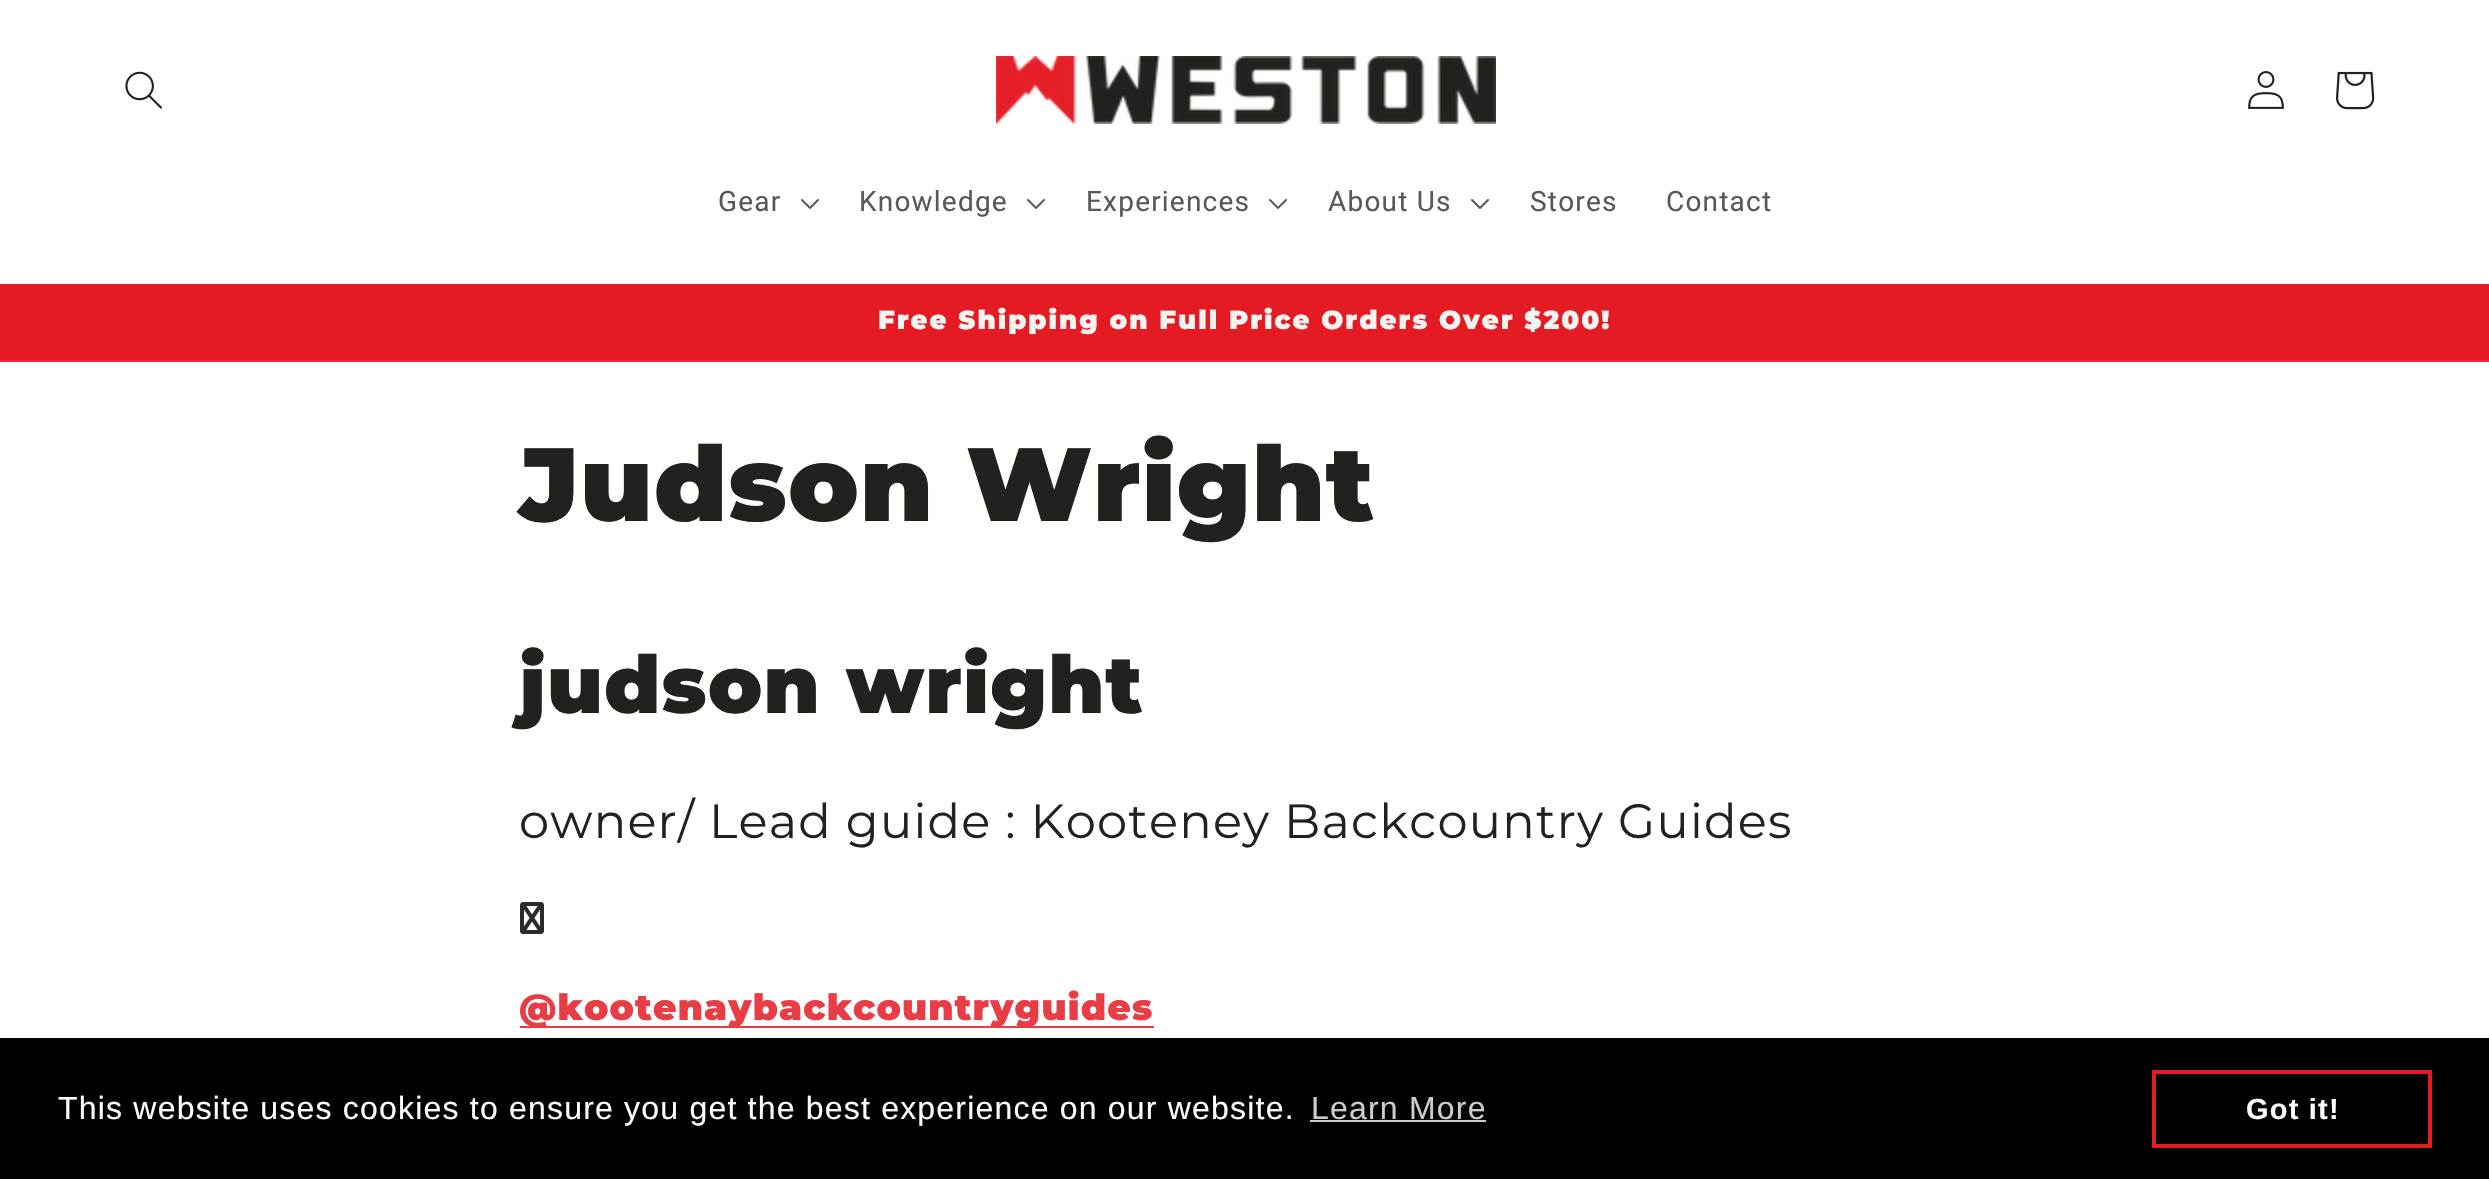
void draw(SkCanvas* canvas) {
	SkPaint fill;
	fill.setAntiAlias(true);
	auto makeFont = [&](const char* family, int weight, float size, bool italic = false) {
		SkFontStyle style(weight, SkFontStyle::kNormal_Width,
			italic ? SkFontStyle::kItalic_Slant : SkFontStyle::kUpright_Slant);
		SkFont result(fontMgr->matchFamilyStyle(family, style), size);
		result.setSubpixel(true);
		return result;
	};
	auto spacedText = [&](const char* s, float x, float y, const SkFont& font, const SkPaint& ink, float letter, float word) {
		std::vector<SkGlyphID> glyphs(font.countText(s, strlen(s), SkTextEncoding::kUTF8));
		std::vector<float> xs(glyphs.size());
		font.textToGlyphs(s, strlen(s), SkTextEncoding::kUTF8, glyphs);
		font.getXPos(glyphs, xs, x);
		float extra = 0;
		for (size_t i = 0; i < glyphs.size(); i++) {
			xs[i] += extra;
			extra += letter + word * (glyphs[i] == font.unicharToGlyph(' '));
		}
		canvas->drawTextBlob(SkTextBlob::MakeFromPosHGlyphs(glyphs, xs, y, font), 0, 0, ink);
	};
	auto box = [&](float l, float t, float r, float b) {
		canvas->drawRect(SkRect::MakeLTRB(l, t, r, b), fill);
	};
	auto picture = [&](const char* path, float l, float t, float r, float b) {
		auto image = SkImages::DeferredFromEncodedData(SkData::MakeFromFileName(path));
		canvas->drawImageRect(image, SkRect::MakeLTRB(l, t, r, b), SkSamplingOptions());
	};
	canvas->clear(0xFFFFFFFF);
	picture("image0.png", 125, 71, 162, 109);
	picture("image1.png", 996, 56, 1496, 124);
	picture("image2.png", 2248, 71, 2284, 109);
	picture("image3.png", 2336, 71, 2375, 110);
	picture("image4.png", 801, 199, 819, 209);
	picture("image4.png", 1027, 199, 1045, 209);
	picture("image4.png", 1269, 199, 1287, 209);
	picture("image4.png", 1471, 199, 1489, 209);
	fill.setColor(0xFFE51B24);
	box(0, 284, 2489, 360);
	fill.setColor(0xFFE62C34);
	box(0, 360, 2489, 362);
	picture("image5.png", 520, 902, 544, 934);
	fill.setColor(0xFFE93D45);
	box(520, 1026, 1154, 1028);
	fill.setColor(0xFF000000);
	box(0, 1038, 2489, 1179);
	fill.setColor(0xFFCCCCCC);
	box(1310, 1120, 1486, 1122);
	fill.setStyle(SkPaint::kStroke_Style);
	fill.setStrokeWidth(4);
	fill.setColor(0xFFE51B24);
	canvas->drawRect(SkRect::MakeLTRB(2154, 1072, 2430, 1146), fill);
	auto font1 = makeFont("Roboto", 400, 28);
	fill.setStyle(SkPaint::kFill_Style);
	fill.setColor(0xFF585956);
	spacedText("Gear", 718, 211, font1, fill, 1.2f, 0);
	spacedText("Knowledge", 859, 211, font1, fill, 1.2f, 0);
	spacedText("Experiences", 1086, 211, font1, fill, 1.2f, 0);
	spacedText("About Us", 1328, 211, font1, fill, 1.2f, 0);
	spacedText("Stores", 1530, 211, font1, fill, 1.2f, 0);
	spacedText("Contact", 1666, 211, font1, fill, 1.2f, 0);
	auto font2 = makeFont("Montserrat", 900, 26);
	fill.setColor(0xFFF4F5F0);
	spacedText("Free Shipping on Full Price Orders Over $200!", 878, 329, font2, fill, 2, 0);
	auto font3 = makeFont("Montserrat", 900, 104);
	fill.setColor(0xFF20221D);
	spacedText("Judson Wright", 519, 521, font3, fill, 1.2f, 0);
	auto font4 = makeFont("Montserrat", 900, 80);
	spacedText("judson wright", 519, 713, font4, fill, 1.2f, 0);
	auto font5 = makeFont("Montserrat", 400, 48);
	spacedText("owner/ Lead guide : Kooteney Backcountry Guides", 519, 838, font5, fill, 1.2f, 0);
	auto font6 = makeFont("Montserrat", 900, 36);
	fill.setColor(0xFFE93D45);
	spacedText("@kootenaybackcountryguides", 519, 1020, font6, fill, 1.2f, 0);
	auto font7 = makeFont("Liberation Sans", 400, 32);
	fill.setColor(0xFFFFFFFF);
	spacedText("This website uses cookies to ensure you get the best experience on our website.", 58, 1119, font7, fill, 1.2f, 0);
	fill.setColor(0xFFCCCCCC);
	spacedText("Learn More", 1311, 1119, font7, fill, 1.2f, 0);
	auto font8 = makeFont("Liberation Sans", 700, 29);
	fill.setColor(0xFFFFFFFF);
	spacedText("Got it!", 2246, 1119, font8, fill, 1.2f, 0);
}
